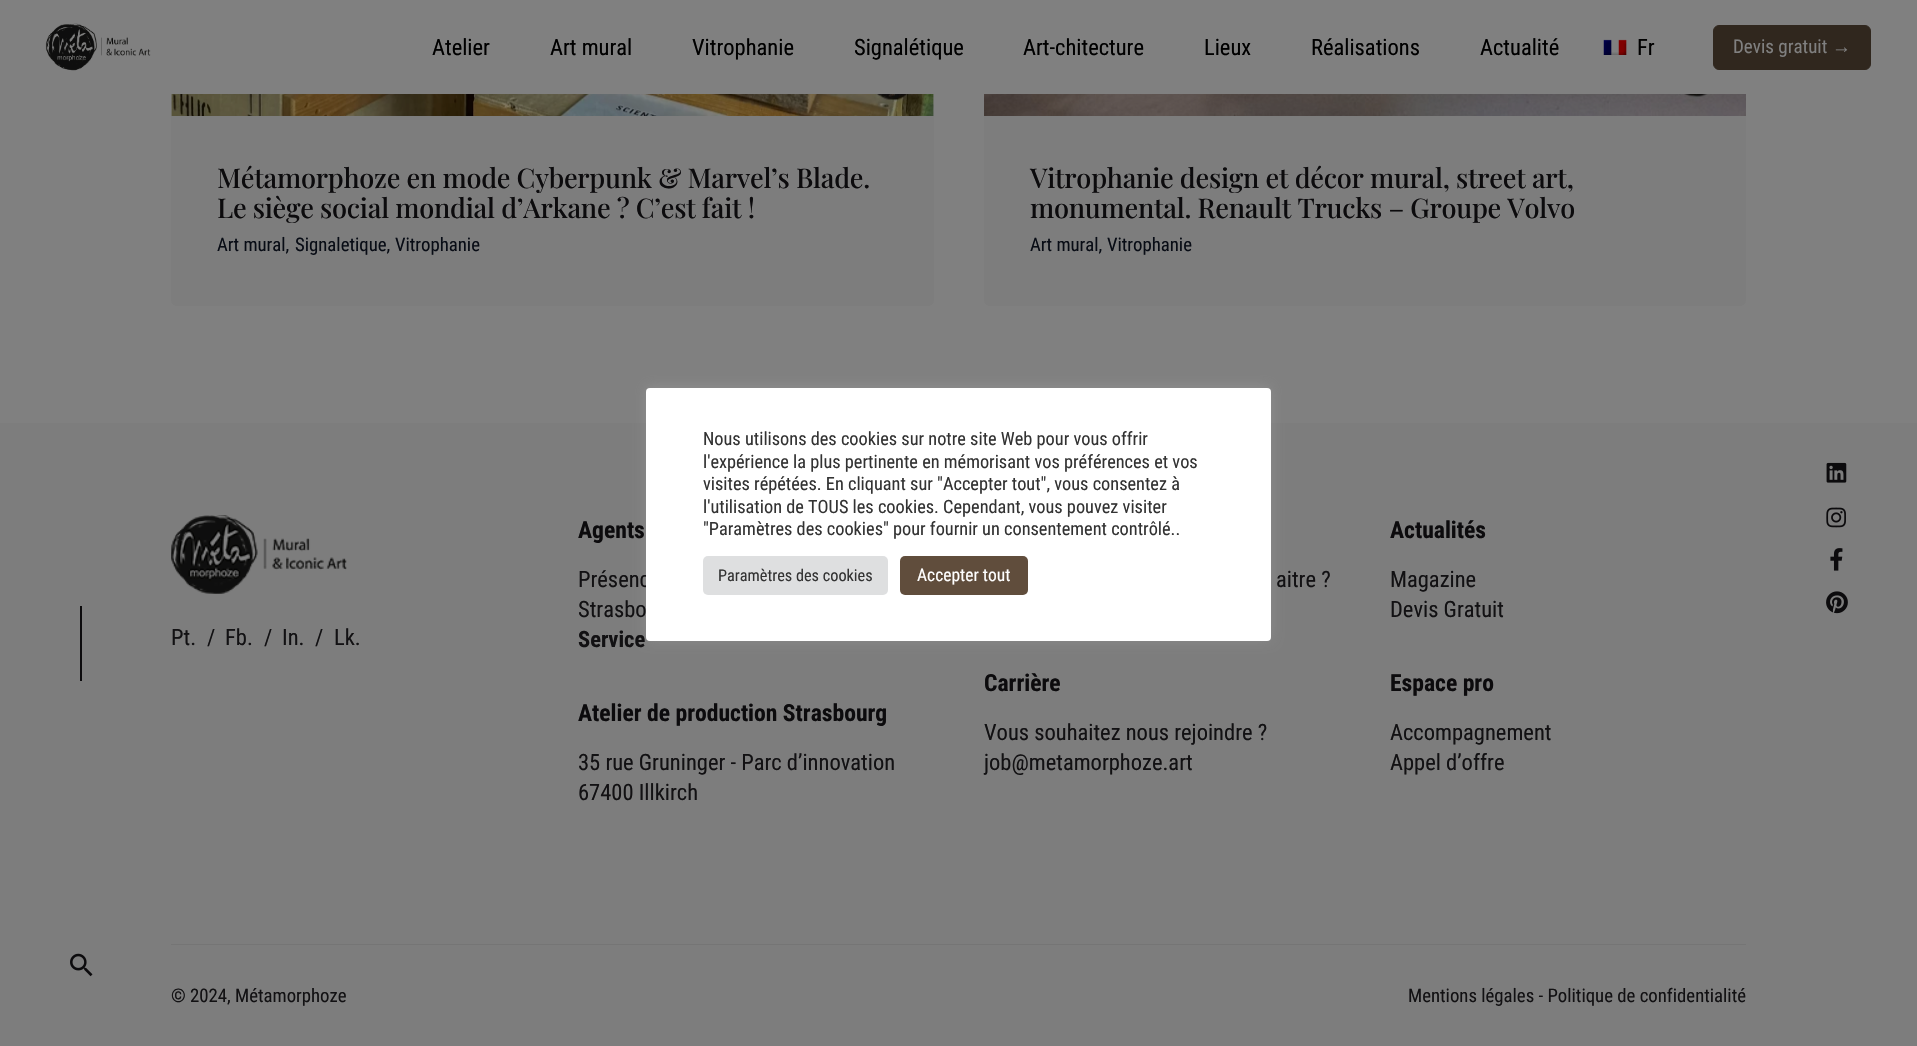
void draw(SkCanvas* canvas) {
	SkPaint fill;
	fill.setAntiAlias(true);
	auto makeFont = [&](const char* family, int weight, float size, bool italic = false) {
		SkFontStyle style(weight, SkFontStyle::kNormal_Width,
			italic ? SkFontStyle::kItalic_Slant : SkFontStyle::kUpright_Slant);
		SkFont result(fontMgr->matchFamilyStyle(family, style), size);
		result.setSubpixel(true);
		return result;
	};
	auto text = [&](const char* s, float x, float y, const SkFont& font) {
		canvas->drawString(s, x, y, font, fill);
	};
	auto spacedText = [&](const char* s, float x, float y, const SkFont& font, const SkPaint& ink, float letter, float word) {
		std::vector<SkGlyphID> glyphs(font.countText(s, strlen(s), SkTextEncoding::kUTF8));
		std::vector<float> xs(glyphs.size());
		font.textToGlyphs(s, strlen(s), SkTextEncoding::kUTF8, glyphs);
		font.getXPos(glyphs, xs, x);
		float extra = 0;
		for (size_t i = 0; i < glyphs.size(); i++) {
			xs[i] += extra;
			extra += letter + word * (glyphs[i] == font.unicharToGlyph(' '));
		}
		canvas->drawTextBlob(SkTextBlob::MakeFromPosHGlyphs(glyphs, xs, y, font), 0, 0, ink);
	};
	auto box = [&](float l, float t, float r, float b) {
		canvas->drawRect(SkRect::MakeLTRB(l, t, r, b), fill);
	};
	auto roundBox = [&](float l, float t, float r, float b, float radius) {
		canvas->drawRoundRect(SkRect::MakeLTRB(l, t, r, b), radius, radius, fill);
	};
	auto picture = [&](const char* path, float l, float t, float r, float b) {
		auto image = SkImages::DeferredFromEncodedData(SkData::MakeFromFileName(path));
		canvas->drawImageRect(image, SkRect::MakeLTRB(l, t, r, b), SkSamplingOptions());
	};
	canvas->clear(0xFF808080);
	picture("image0.png", 45, 23, 151, 71);
	picture("image1.png", 1603, 39, 1627, 55);
	fill.setColor(0xFF30271E);
	canvas->drawRoundRect(SkRect::MakeLTRB(1713.5f, 25.5f, 1870.5f, 69.5f), 5.5f, 5.5f, fill);
	fill.setStyle(SkPaint::kStroke_Style);
	fill.setStrokeWidth(1);
	canvas->drawRoundRect(SkRect::MakeLTRB(1713.5f, 25.5f, 1870.5f, 69.5f), 5.5f, 5.5f, fill);
	picture("image2.png", 171, 94, 934, 116);
	fill.setStyle(SkPaint::kFill_Style);
	fill.setColor(0xFF7D7D7D);
	canvas->drawPath(SkPathBuilder().moveTo(171, 116).lineTo(934, 116).lineTo(934, 300).cubicTo(934, 303.5f, 931.5f, 306, 928, 306).lineTo(177, 306).cubicTo(173.5f, 306, 171, 303.5f, 171, 300).close().detach(), fill);
	picture("image3.png", 984, 94, 1746, 116);
	canvas->drawPath(SkPathBuilder().moveTo(984, 116).lineTo(1746, 116).lineTo(1746, 300).cubicTo(1746, 303.5f, 1743.5f, 306, 1740, 306).lineTo(990, 306).cubicTo(986.5f, 306, 984, 303.5f, 984, 300).close().detach(), fill);
	box(0, 423, 1917, 1046);
	picture("image4.png", 171, 515, 347, 594);
	fill.setColor(0xFF757575);
	box(171, 944, 1746, 945);
	fill.setColor(0x4DACABAB);
	fill.setMaskFilter(SkMaskFilter::MakeBlur(kNormal_SkBlurStyle, 6));
	canvas->drawRoundRect(SkRect::MakeLTRB(646, 386, 1271, 640), 4, 4, fill);
	fill.setMaskFilter(nullptr);
	picture("image5.png", 1826, 462, 1847, 483);
	picture("image6.png", 1826, 507, 1846, 528);
	picture("image7.png", 1830, 548, 1843, 571);
	picture("image8.png", 1826, 591, 1848, 614);
	fill.setColor(0xFF0C0B0D);
	box(80, 606, 82, 681);
	picture("image9.png", 70, 953, 93, 977);
	auto font1 = makeFont("Roboto Condensed", 400, 22.5f);
	fill.setColor(0xFF000000);
	text("Atelier", 432, 55, font1);
	text("Art mural", 550, 55, font1);
	text("Vitrophanie", 692, 55, font1);
	text("Signalétique", 854, 55, font1);
	text("Art-chitecture", 1023, 55, font1);
	text("Lieux", 1204, 55, font1);
	text("Réalisations", 1311, 55, font1);
	text("Actualité", 1480, 55, font1);
	text("Fr", 1637, 55, font1);
	auto font2 = makeFont("Roboto Condensed", 400, 19);
	fill.setColor(0xFF808080);
	text("Devis gratuit", 1733, 53, font2);
	auto font3 = makeFont("Liberation Sans", 400, 19);
	text("→", 1832, 53, font3);
	auto font4 = makeFont("Playfair Display", 500, 27.1f);
	fill.setColor(0xFF0C0B0D);
	spacedText("Métamorphoze en mode Cyberpunk & Marvel’s Blade.", 217, 188, font4, fill, -0.25f, 0);
	spacedText("Le siège social mondial d’Arkane ? C’est fait !", 217, 218, font4, fill, -0.25f, 0);
	auto font5 = makeFont("Roboto Condensed", 400, 18.75f);
	fill.setColor(0xFF080C15);
	text("Art mural,", 217, 251, font5);
	text("Signaletique,", 295, 251, font5);
	text("Vitrophanie", 395, 251, font5);
	fill.setColor(0xFF0C0B0D);
	spacedText("Vitrophanie design et décor mural, street art,", 1030, 188, font4, fill, -0.25f, 0);
	spacedText("monumental. Renault Trucks – Groupe Volvo", 1030, 218, font4, fill, -0.25f, 0);
	fill.setColor(0xFF080C15);
	text("Art mural,", 1030, 251, font5);
	text("Vitrophanie", 1107, 251, font5);
	fill.setColor(0xFF121113);
	text("Pt.", 171, 645, font1);
	text("/", 207, 645, font1);
	text("Fb.", 225, 645, font1);
	text("/", 264, 645, font1);
	text("In.", 282, 645, font1);
	text("/", 315, 645, font1);
	text("Lk.", 334, 645, font1);
	auto font6 = makeFont("Roboto Condensed", 700, 23.6f);
	fill.setColor(0xFF0C0B0D);
	text("Agents", 578, 538, font6);
	fill.setColor(0xFF121113);
	text("Présenc", 578, 587, font1);
	text("Strasbo", 578, 617, font1);
	auto font7 = makeFont("Roboto Condensed", 700, 22.5f);
	text("Service", 578, 647, font7);
	fill.setColor(0xFF0C0B0D);
	text("Atelier de production Strasbourg", 578, 721, font6);
	fill.setColor(0xFF121113);
	text("35 rue Gruninger - Parc d’innovation", 578, 770, font1);
	text("67400 Illkirch", 578, 800, font1);
	text("aitre ?", 1276, 587, font1);
	fill.setColor(0xFF0C0B0D);
	text("Carrière", 984, 691, font6);
	fill.setColor(0xFF121113);
	text("Vous souhaitez nous rejoindre ?", 984, 740, font1);
	text("job@metamorphoze.art", 984, 770, font1);
	fill.setColor(0xFF0C0B0D);
	text("Actualités", 1390, 538, font6);
	fill.setColor(0xFF121113);
	text("Magazine", 1390, 587, font1);
	text("Devis Gratuit", 1390, 617, font1);
	fill.setColor(0xFF0C0B0D);
	text("Espace pro", 1390, 691, font6);
	fill.setColor(0xFF121113);
	text("Accompagnement", 1390, 740, font1);
	text("Appel d’offre", 1390, 770, font1);
	text("© 2024, Métamorphoze", 171, 1002, font5);
	text("Mentions légales - Politique de confidentialité", 1408, 1002, font5);
	fill.setColor(0xFFFFFFFF);
	roundBox(646, 388, 1271, 641, 4);
	auto font8 = makeFont("Roboto Condensed", 400, 18.3f);
	fill.setColor(0xFF333333);
	text("Nous utilisons des cookies sur notre site Web pour vous offrir", 703, 445, font8);
	text("l'expérience la plus pertinente en mémorisant vos préférences et vos", 703, 468, font8);
	text("visites répétées. En cliquant sur \"Accepter tout\", vous consentez à", 703, 490, font8);
	text("l'utilisation de TOUS les cookies. Cependant, vous pouvez visiter", 703, 513, font8);
	text("\"Paramètres des cookies\" pour fournir un consentement contrôlé..", 703, 535, font8);
	fill.setColor(0xFFDEDFE0);
	roundBox(703, 556, 888, 595, 5);
	auto font9 = makeFont("Roboto Condensed", 400, 16.25f);
	fill.setColor(0xFF333333);
	text("Paramètres des cookies", 718, 581, font9);
	fill.setColor(0xFF604D3C);
	roundBox(900, 556, 1028, 595, 5);
	auto font10 = makeFont("Roboto Condensed", 400, 17.5f);
	fill.setColor(0xFFFFFFFF);
	text("Accepter tout", 917, 581, font10);
}
